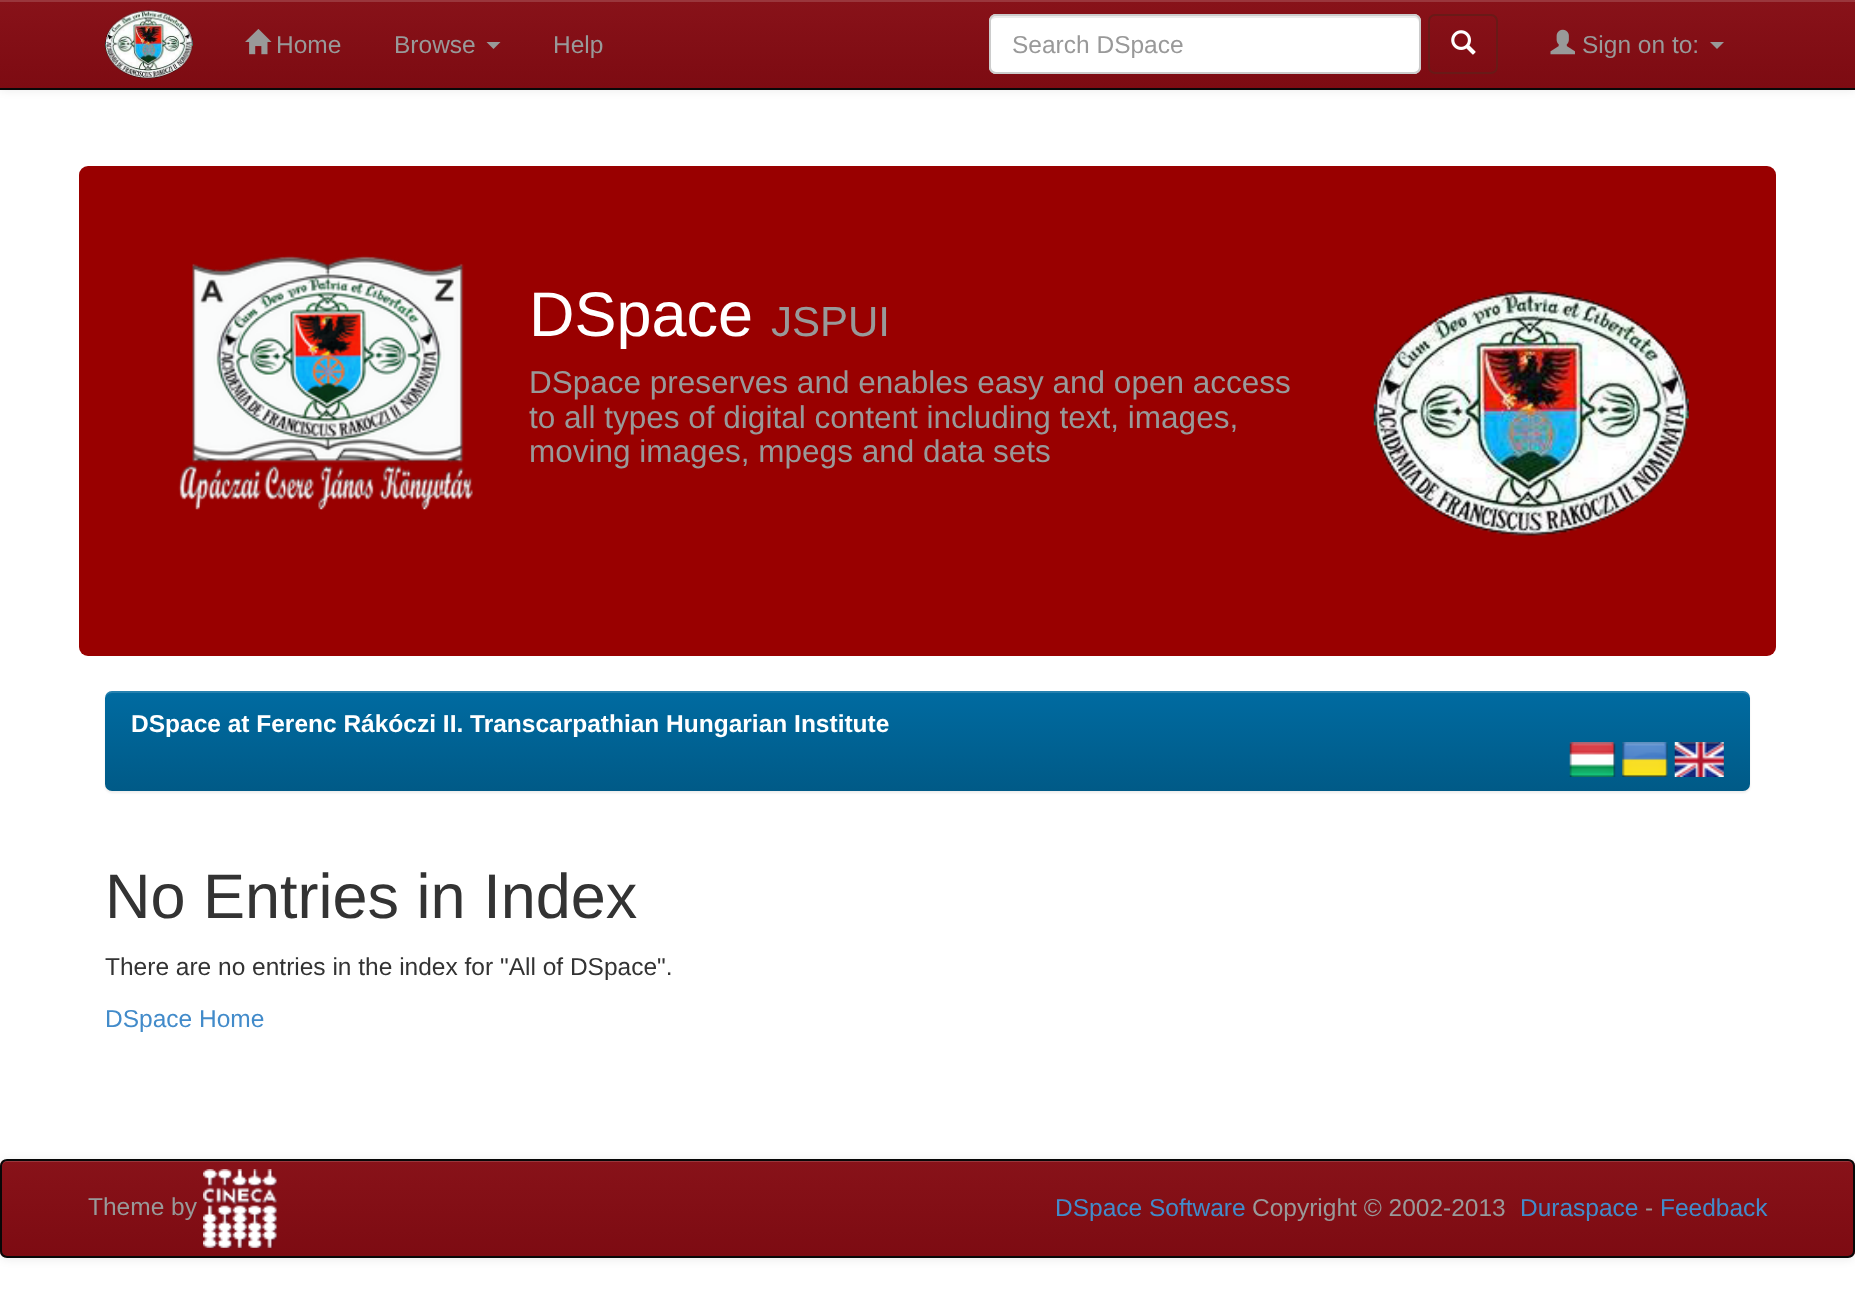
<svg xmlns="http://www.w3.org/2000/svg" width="1855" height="1298">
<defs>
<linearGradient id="g1" gradientUnits="userSpaceOnUse" x1="928" y1="0" x2="928" y2="88"><stop offset="0" stop-color="#881219"/><stop offset="1" stop-color="#7d0b12"/></linearGradient>
<linearGradient id="g2" gradientUnits="userSpaceOnUse" x1="928" y1="691" x2="928" y2="791"><stop offset="0" stop-color="#006ba1"/><stop offset="1" stop-color="#005a87"/></linearGradient>
<clipPath id="clip1"><rect y="1159" width="1855" height="99" rx="7"/></clipPath>
<linearGradient id="g3" gradientUnits="userSpaceOnUse" x1="928" y1="1160" x2="928" y2="1257"><stop offset="0" stop-color="#881219"/><stop offset="1" stop-color="#7d0b12"/></linearGradient>
</defs>
<rect width="100%" height="100%" fill="#fff"/>
<rect y="2" width="1855" height="89" fill="#00000012" filter="blur(4.5px)"/>
<rect y="2" width="1855" height="86" fill="url(#g1)"/>
<rect width="1855" height="2" fill="#9a363c"/>
<rect y="88" width="1855" height="2" fill="#080808"/>
<image x="105" y="9" width="88" height="70" href="media/1.png"/>
<image x="245" y="29" width="27" height="26" href="media/2.png"/>
<text x="276" y="53" style="font-family:Liberation Sans;font-size:24.5px;fill:#999">Home</text>
<text x="394" y="53" style="font-family:Liberation Sans;font-size:24.5px;fill:#999">Browse</text>
<path d="M486.5 42h14l-7 7z" fill="#999"/>
<text x="553" y="53" style="font-family:Liberation Sans;font-size:24.5px;fill:#999">Help</text>
<rect x="989" y="14" width="432" height="60" rx="7" fill="#fff"/>
<path d="M996 18h418c3 0 5 2 5 5v-2c0-3-2-5-5-5h-418c-2 0-5 2-5 4c1-1 3-2 5-2z" fill="#ececec"/>
<rect x="990" y="15" width="430" height="58" rx="6" fill="none" stroke="#ccc" stroke-width="2"/>
<text x="1012" y="53" style="font-family:Liberation Sans;font-size:24.5px;fill:#999">Search DSpace</text>
<rect x="1429" y="15" width="68" height="58" rx="6" fill="none" stroke="#691a17" stroke-width="2"/>
<image x="1451" y="30" width="25" height="25" href="media/3.png"/>
<image x="1550" y="29" width="25" height="26" href="media/4.png"/>
<text x="1582" y="53" style="font-family:Liberation Sans;font-size:24.5px;fill:#999">Sign on to:</text>
<path d="M1710 42h14l-7 7z" fill="#999"/>
<rect x="79" y="166" width="1697" height="490" rx="9" fill="#900"/>
<image x="178" y="254" width="295" height="256" href="media/5.png"/>
<text x="529" y="336" style="font-family:Liberation Sans;font-size:63px;fill:#fff">DSpace</text>
<text x="771" y="336" style="font-family:Liberation Sans;font-size:42px;fill:#999">JSPUI</text>
<text x="529" y="393" style="font-family:Liberation Sans;font-size:31.5px;fill:#999">DSpace preserves and enables easy and open access</text>
<text x="529" y="428" style="font-family:Liberation Sans;font-size:31.5px;fill:#999">to all types of digital content including text, images,</text>
<text x="529" y="462" style="font-family:Liberation Sans;font-size:31.5px;fill:#999">moving images, mpegs and data sets</text>
<image x="1373" y="290" width="316" height="246" href="media/6.png"/>
<rect x="105" y="693" width="1645" height="100" rx="7" fill="#00000012" filter="blur(1px)"/>
<rect x="105" y="691" width="1645" height="100" rx="7" fill="url(#g2)"/>
<path d="M112 693h1631c4 0 7 3 7 7c0-4-2-9-7-9h-1631c-5 0-7 5-7 9c0-4 3-7 7-7z" fill="#ffffff26"/>
<text x="131" y="732" style="font-family:Liberation Sans;font-size:24.5px;font-weight:bold;fill:#fff">DSpace at Ferenc Rákóczi II. Transcarpathian Hungarian Institute</text>
<image x="1569" y="742" width="47" height="35" href="media/7.png"/>
<image x="1622" y="742" width="46" height="35" href="media/8.png"/>
<image x="1674" y="742" width="50" height="35" href="media/9.png"/>
<text x="105" y="918" style="font-family:Liberation Sans;font-size:63px;fill:#333">No Entries in Index</text>
<text x="105" y="975" style="font-family:Liberation Sans;font-size:24.5px;fill:#333">There are no entries in the index for "All of DSpace".</text>
<text x="105" y="1027" style="font-family:Liberation Sans;font-size:24.5px;fill:#428bca">DSpace Home</text>
<rect y="1160" width="1855" height="100" rx="7" fill="#00000012" filter="blur(4.5px)"/>
<g clip-path="url(#clip1)">
<rect y="1160" width="1855" height="97" fill="url(#g3)"/>
</g>
<path d="M7 1162h1841c3 0 5 2 5 5c0-3-1-7-5-7h-1841c-4 0-5 4-5 7c0-3 2-5 5-5z" fill="#9a363c"/>
<rect x="1" y="1160" width="1853" height="97" rx="6" fill="none" stroke="#080808" stroke-width="2"/>
<text x="88" y="1215" style="font-family:Liberation Sans;font-size:24.5px;fill:#999">Theme by</text>
<image x="203" y="1169" width="74" height="79" href="media/10.png"/>
<text x="1055" y="1216" style="font-family:Liberation Sans;font-size:24.5px;fill:#428bca">DSpace Software</text>
<text x="1252" y="1216" style="font-family:Liberation Sans;font-size:24.5px;fill:#999">Copyright © 2002-2013</text>
<text x="1520" y="1216" style="font-family:Liberation Sans;font-size:24.5px;fill:#428bca">Duraspace</text>
<text x="1645" y="1216" style="font-family:Liberation Sans;font-size:24.5px;fill:#999">-</text>
<text x="1660" y="1216" style="font-family:Liberation Sans;font-size:24.5px;fill:#428bca">Feedback</text>
</svg>
